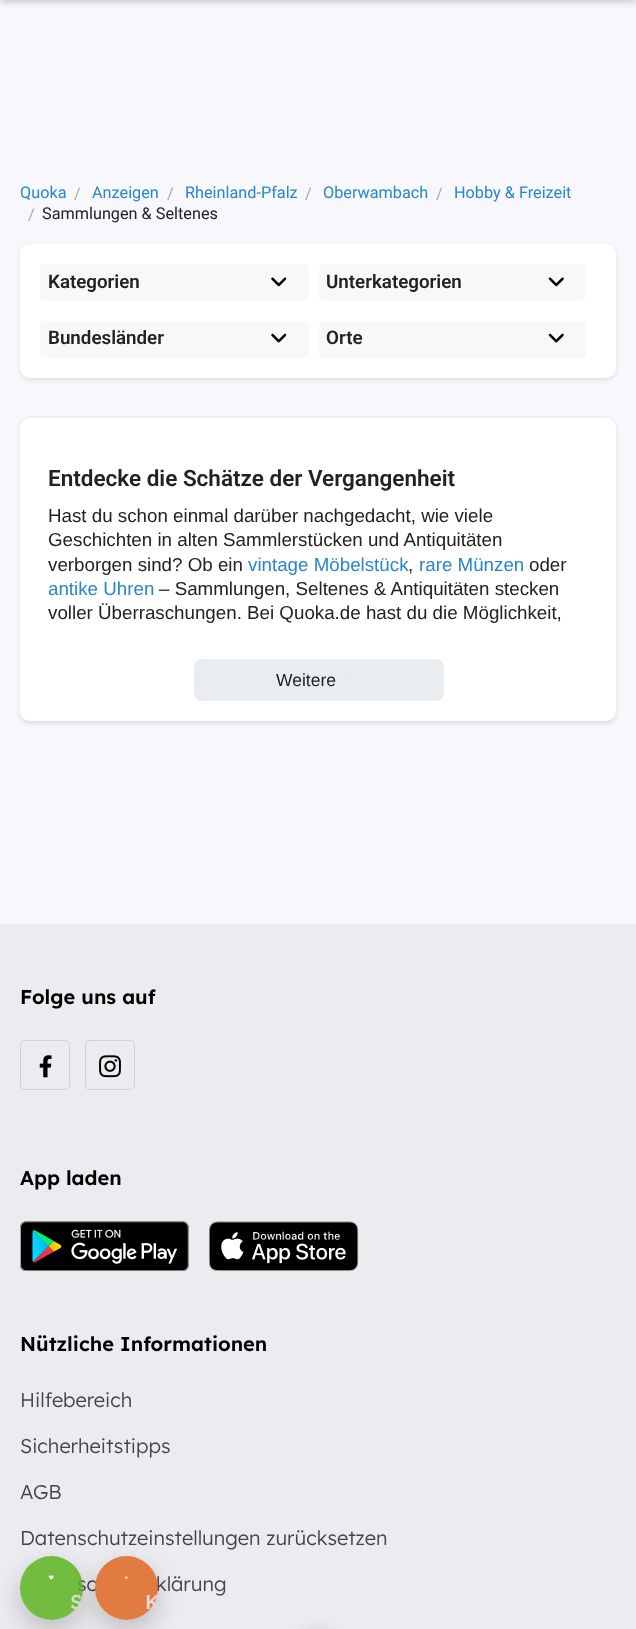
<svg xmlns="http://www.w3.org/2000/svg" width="636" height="1629">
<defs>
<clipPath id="clip1"><path d="M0 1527h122v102h-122zm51.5 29c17.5 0 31.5 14 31.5 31.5v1c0 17.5-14 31.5-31.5 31.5c-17.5 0-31.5-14-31.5-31.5v-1c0-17.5 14-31.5 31.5-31.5z" clip-rule="evenodd"/></clipPath>
<clipPath id="clip2"><path d="M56 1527h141v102h-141zm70.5 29c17.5 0 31.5 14 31.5 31.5v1c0 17.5-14 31.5-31.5 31.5c-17.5 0-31.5-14-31.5-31.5v-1c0-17.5 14-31.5 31.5-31.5z" clip-rule="evenodd"/></clipPath>
</defs>
<rect width="100%" height="100%" fill="#f7f7fc"/>
<rect y="-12" width="636" height="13" fill="#20212447" filter="blur(4px)"/>
<text x="20" y="198" style="font-family:Roboto;font-size:16.25px;fill:#2986c8">Quoka</text>
<text x="74" y="199" style="font-family:Roboto;font-size:16.25px;fill:#aaa">/</text>
<text x="92" y="198" style="font-family:Roboto;font-size:16.25px;fill:#2986c8">Anzeigen</text>
<text x="167" y="199" style="font-family:Roboto;font-size:16.25px;fill:#aaa">/</text>
<text x="185" y="198" style="font-family:Roboto;font-size:16.25px;fill:#2986c8">Rheinland-Pfalz</text>
<text x="305" y="199" style="font-family:Roboto;font-size:16.25px;fill:#aaa">/</text>
<text x="323" y="198" style="font-family:Roboto;font-size:16.25px;fill:#2986c8">Oberwambach</text>
<text x="436" y="199" style="font-family:Roboto;font-size:16.25px;fill:#aaa">/</text>
<text x="454" y="198" style="font-family:Roboto;font-size:16.25px;fill:#2986c8">Hobby &amp; Freizeit</text>
<text x="28" y="220" style="font-family:Roboto;font-size:16.25px;fill:#aaa">/</text>
<text x="42" y="219" style="font-family:Roboto;font-size:16.25px;fill:#222">Sammlungen &amp; Seltenes</text>
<rect x="20" y="246" width="596" height="134" rx="10" fill="#0000001a" filter="blur(2.5px)"/>
<rect x="20" y="244" width="596" height="134" rx="10" fill="#fff"/>
<rect x="40" y="264" width="269" height="37" rx="5" fill="#f8f8f8"/>
<image x="271" y="277" width="16" height="10" href="media/1.png"/>
<text x="48" y="288" style="font-family:Roboto;font-size:18.75px;font-weight:600;fill:#222">Kategorien</text>
<rect x="319" y="264" width="267" height="37" rx="5" fill="#f8f8f8"/>
<image x="548" y="277" width="16" height="10" href="media/2.png"/>
<text x="326" y="288" style="font-family:Roboto;font-size:18.75px;font-weight:600;fill:#222">Unterkategorien</text>
<rect x="40" y="321" width="269" height="37" rx="5" fill="#f8f8f8"/>
<image x="271" y="333" width="16" height="10" href="media/3.png"/>
<text x="48" y="344" style="font-family:Roboto;font-size:18.75px;font-weight:600;fill:#222">Bundesländer</text>
<rect x="319" y="321" width="267" height="37" rx="5" fill="#f8f8f8"/>
<image x="548" y="333" width="16" height="10" href="media/4.png"/>
<text x="326" y="344" style="font-family:Roboto;font-size:18.75px;font-weight:600;fill:#222">Orte</text>
<path d="M30 416c-7 0-10 6-10 12c0-6 4-10 10-10h576c5 0 9 3 10 7c0-5-5-9-10-9z" fill="#f2f2f7"/>
<rect x="20" y="420" width="596" height="304" rx="10" fill="#0000001a" filter="blur(2.5px)"/>
<rect x="20" y="418" width="596" height="303" rx="10" fill="#fff"/>
<text x="48" y="486" style="font-family:Roboto;font-size:22.5px;font-weight:600;fill:#222">Entdecke die Schätze der Vergangenheit</text>
<text x="48" y="522" style="font-family:Liberation Sans;font-size:18.75px;fill:#222">Hast du schon einmal darüber nachgedacht, wie viele</text>
<text x="48" y="546" style="font-family:Liberation Sans;font-size:18.75px;fill:#222">Geschichten in alten Sammlerstücken und Antiquitäten</text>
<text x="48" y="571" style="font-family:Liberation Sans;font-size:18.75px;fill:#222">verborgen sind? Ob ein</text>
<text x="248" y="571" style="font-family:Liberation Sans;font-size:18.75px;fill:#2986c8">vintage Möbelstück</text>
<text x="408" y="571" style="font-family:Liberation Sans;font-size:18.75px;fill:#222">,</text>
<text x="419" y="571" style="font-family:Liberation Sans;font-size:18.75px;fill:#2986c8">rare Münzen</text>
<text x="529" y="571" style="font-family:Liberation Sans;font-size:18.75px;fill:#222">oder</text>
<text x="48" y="595" style="font-family:Liberation Sans;font-size:18.75px;fill:#2986c8">antike Uhren</text>
<text x="159" y="595" style="font-family:Liberation Sans;font-size:18.75px;fill:#222">– Sammlungen, Seltenes &amp; Antiquitäten stecken</text>
<text x="48" y="619" style="font-family:Liberation Sans;font-size:18.75px;fill:#222">voller Überraschungen. Bei Quoka.de hast du die Möglichkeit,</text>
<rect x="194" y="659" width="250" height="42" rx="8" fill="#eaedef"/>
<text x="276" y="686" style="font-family:Liberation Sans;font-size:17.5px;fill:#222">Weitere</text>
<image x="348" y="673" width="2" height="1" href="media/5.png"/>
<rect y="924" width="636" height="705" fill="#ececf0"/>
<text x="20" y="1004" style="font-family:Lexend;font-size:20px;font-weight:600;fill:#000">Folge uns auf</text>
<rect x="20.5" y="1040.5" width="49" height="49" rx="4.5" fill="none" stroke="#d2d2d2"/>
<image x="39" y="1055" width="13" height="23" href="media/6.png"/>
<rect x="85.5" y="1040.5" width="49" height="49" rx="4.5" fill="none" stroke="#d2d2d2"/>
<image x="99" y="1055" width="22" height="23" href="media/7.png"/>
<text x="20" y="1185" style="font-family:Lexend;font-size:20px;font-weight:600;fill:#000">App laden</text>
<image x="20" y="1221" width="169" height="50" href="media/8.png"/>
<image x="209" y="1221" width="150" height="50" href="media/9.png"/>
<text x="20" y="1351" style="font-family:Lexend;font-size:20px;font-weight:600;fill:#000">Nützliche Informationen</text>
<text x="20" y="1407" style="font-family:Lexend;font-size:20px;font-weight:300;fill:#444">Hilfebereich</text>
<text x="20" y="1453" style="font-family:Lexend;font-size:20px;font-weight:300;fill:#444">Sicherheitstipps</text>
<text x="20" y="1499" style="font-family:Lexend;font-size:20px;font-weight:300;fill:#444">AGB</text>
<text x="20" y="1545" style="font-family:Lexend;font-size:20px;font-weight:300;fill:#444">Datenschutzeinstellungen zurücksetzen</text>
<text x="77" y="1591" style="font-family:Lexend;font-size:20px;font-weight:300;fill:#444">sc</text>
<text x="156" y="1591" style="font-family:Lexend;font-size:20px;font-weight:300;fill:#444">klärung</text>
<g clip-path="url(#clip1)">
<rect x="20" y="1566" width="63" height="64" rx="31.5" fill="#00000033" filter="blur(12.5px)"/>
</g>
<rect x="20" y="1556" width="63" height="64" rx="31.5" fill="#5db420d9"/>
<image x="48" y="1575" width="6" height="5" href="media/10.png"/>
<text x="70" y="1609" style="font-family:Lexend;font-size:20px;font-weight:500;fill:#d1dfca">S</text>
<g clip-path="url(#clip2)">
<rect x="95" y="1566" width="63" height="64" rx="31.5" fill="#00000033" filter="blur(12.5px)"/>
</g>
<rect x="95" y="1556" width="63" height="64" rx="31.5" fill="#e06720d9"/>
<image x="124" y="1575" width="5" height="5" href="media/11.png"/>
<text x="145" y="1609" style="font-family:Lexend;font-size:20px;font-weight:500;fill:#e8dbd7">K</text>
<rect x="295" y="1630" width="45" height="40" rx="22.5" fill="#ccc" filter="blur(6px)"/>
</svg>
